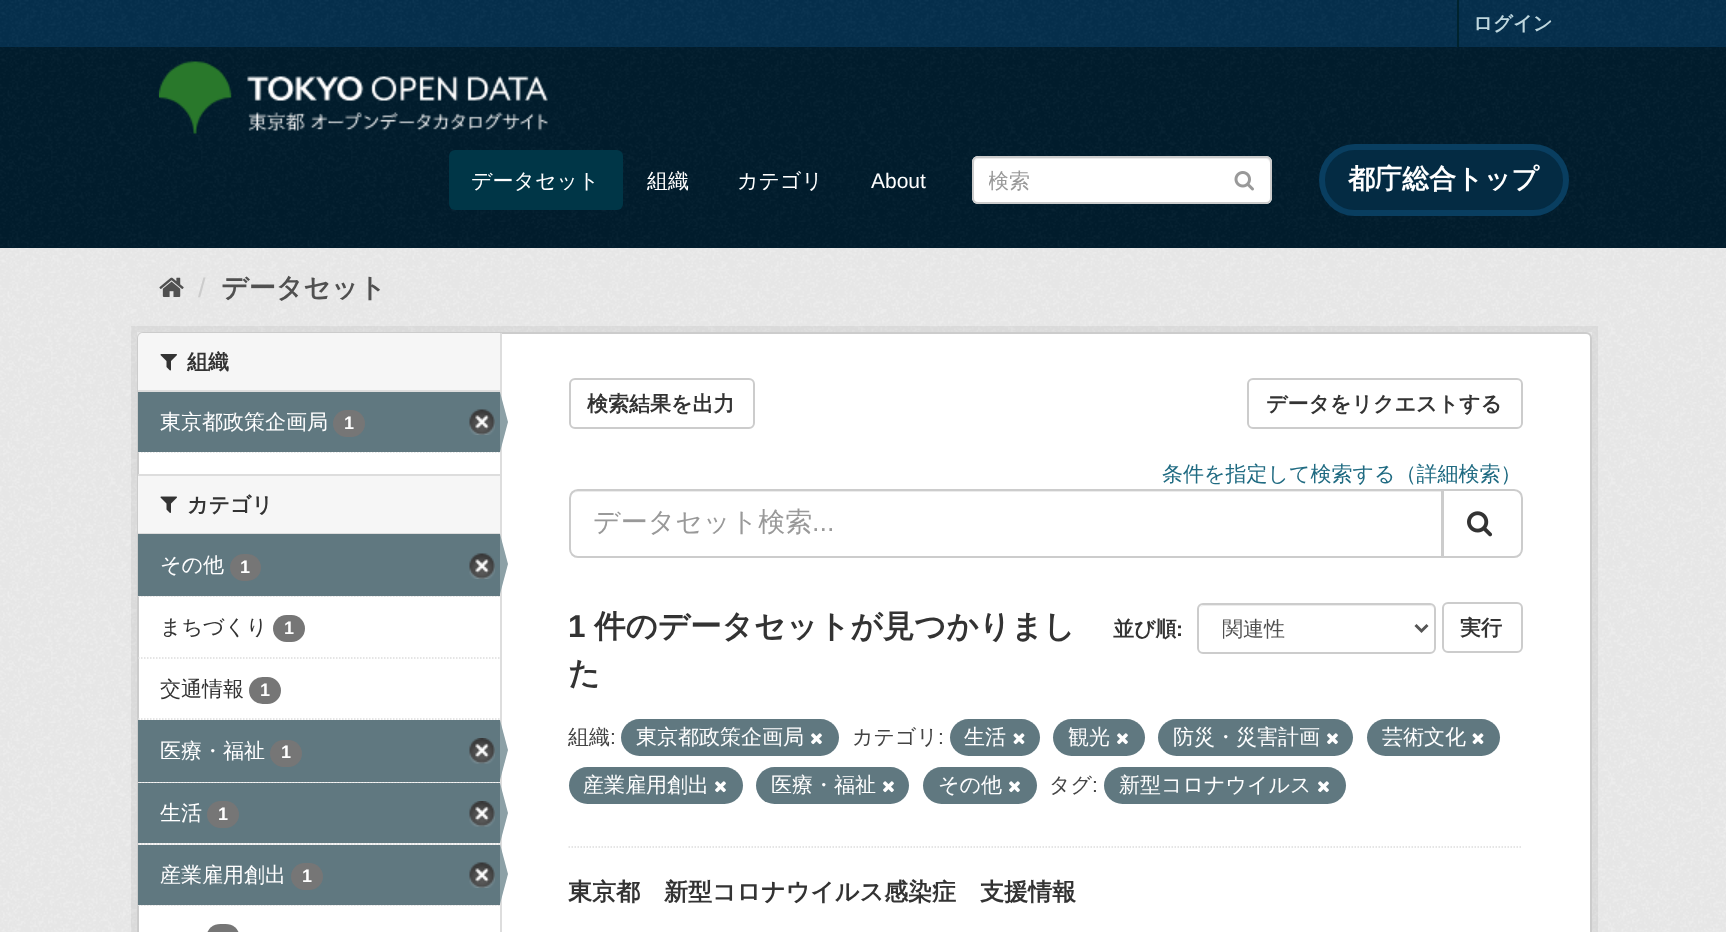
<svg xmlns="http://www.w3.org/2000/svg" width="1726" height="932">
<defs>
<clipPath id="clip1"><rect x="989" y="168" width="267" height="27"/></clipPath>
<clipPath id="clip2"><rect x="1223" y="615" width="169" height="27"/></clipPath>
</defs>
<rect width="100%" height="100%" fill="#06304e"/>
<image x="0" y="0" width="1726" height="46" href="media/1.png"/>
<rect x="1457" width="2" height="47" fill="#00232e"/>
<text x="1473" y="30" style="font-family:WenQuanYi Zen Hei;font-size:19.5px;font-weight:bold;fill:#bfd7de">ログイン</text>
<rect y="47" width="1726" height="201" fill="#021d2e"/>
<image x="0" y="47" width="1726" height="200" href="media/2.png"/>
<image x="159" y="61" width="389" height="73" href="media/3.png"/>
<rect x="449" y="150" width="174" height="60" rx="6" fill="#003647"/>
<text x="471" y="188" style="font-family:WenQuanYi Zen Hei;font-size:21px;font-weight:500;fill:#fff">データセット</text>
<text x="647" y="188" style="font-family:WenQuanYi Zen Hei;font-size:21px;font-weight:500;fill:#fff">組織</text>
<text x="737" y="188" style="font-family:WenQuanYi Zen Hei;font-size:21px;font-weight:500;fill:#fff">カテゴリ</text>
<text x="871" y="188" style="font-family:Liberation Sans;font-size:21px;fill:#fff">About</text>
<rect x="972" y="156" width="300" height="48" rx="6" fill="#fff"/>
<path d="M978 159h288c2 0 4 2 4 5v37c1-1 1-2 1-3v-35c0-3-2-5-5-5h-287c-3 0-5 2-5 5v1c0-3 2-5 4-5z" fill="#ececec"/>
<rect x="973" y="157" width="298" height="46" rx="5" fill="none" stroke="#ccc" stroke-width="2"/>
<g clip-path="url(#clip1)">
<text x="988" y="188" style="font-family:WenQuanYi Zen Hei;font-size:21px;font-weight:500;fill:#999">検索</text>
</g>
<image x="1234" y="171" width="20" height="20" href="media/4.png"/>
<rect x="1322" y="147" width="244" height="66" rx="33" fill="#042b43" stroke="#093e60" stroke-width="6"/>
<text x="1348" y="188" style="font-family:WenQuanYi Zen Hei;font-size:27px;font-weight:bold;fill:#fff">都庁総合トップ</text>
<rect y="248" width="1726" height="684" fill="#eee"/>
<image x="0" y="248" width="1726" height="684" href="media/5.png"/>
<image x="159" y="277" width="25" height="20" href="media/6.png"/>
<text x="198" y="297" style="font-family:Liberation Sans;font-size:27px;fill:#ccc">/</text>
<text x="221" y="297" style="font-family:WenQuanYi Zen Hei;font-size:27px;font-weight:bold;fill:#505050">データセット</text>
<rect x="134" y="329" width="1461" height="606" fill="none" stroke="#0000000d" stroke-width="6"/>
<rect x="138" y="333" width="1453" height="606" rx="5" fill="#fff" stroke="#ccc" stroke-width="2"/>
<path d="M143 333h357v59h-362v-54c0-3 2-5 5-5z" fill="#f6f6f6"/>
<rect x="138" y="390" width="362" height="2" fill="#ddd"/>
<image x="160" y="354" width="17" height="17" href="media/7.png"/>
<text x="187" y="369" style="font-family:WenQuanYi Zen Hei;font-size:21px;font-weight:bold;fill:#333">組織</text>
<path d="M138 452h361.5" fill="none" stroke="#ddd" stroke-width="1.5" stroke-dasharray="1.5 1.5"/>
<rect x="138" y="392" width="362" height="60" fill="#607880"/>
<text x="160" y="429" style="font-family:WenQuanYi Zen Hei;font-size:21px;font-weight:500;fill:#fff">東京都政策企画局</text>
<rect x="333" y="410" width="32" height="27" rx="13.5" fill="#767676"/>
<text x="344" y="429" style="font-family:Liberation Sans;font-size:18px;font-weight:bold;fill:#fff">1</text>
<image x="469" y="409" width="26" height="26" href="media/8.png"/>
<rect x="500" y="333" width="2" height="599" fill="#ddd"/>
<path d="M500 452v-60l8 30z" fill="#8ca0a6"/>
<rect x="138" y="476" width="362" height="57" fill="#f6f6f6"/>
<rect x="138" y="474" width="362" height="2" fill="#ddd"/>
<rect x="138" y="533" width="362" height="1" fill="#ddd"/>
<image x="160" y="496" width="17" height="17" href="media/9.png"/>
<text x="187" y="512" style="font-family:WenQuanYi Zen Hei;font-size:21px;font-weight:bold;fill:#333">カテゴリ</text>
<rect x="138" y="596" width="362" height="1" fill="#f6f6f6"/>
<path d="M138 596h361.5" fill="none" stroke="#ddd" stroke-width="1.5" stroke-dasharray="1.5 1.5"/>
<rect x="138" y="534" width="362" height="62" fill="#607880"/>
<text x="160" y="572" style="font-family:WenQuanYi Zen Hei;font-size:21px;font-weight:500;fill:#fff">その他</text>
<rect x="230" y="554" width="31" height="27" rx="13.5" fill="#767676"/>
<text x="240" y="573" style="font-family:Liberation Sans;font-size:18px;font-weight:bold;fill:#fff">1</text>
<image x="469" y="553" width="26" height="26" href="media/8.png"/>
<path d="M500 594v-60l8 30z" fill="#8ca0a6"/>
<path d="M138 658h361.5" fill="none" stroke="#ddd" stroke-width="1.5" stroke-dasharray="1.5 1.5"/>
<text x="160" y="634" style="font-family:WenQuanYi Zen Hei;font-size:21px;font-weight:500;fill:#333">まちづくり</text>
<rect x="273" y="615" width="32" height="27" rx="13.5" fill="#767676"/>
<text x="284" y="634" style="font-family:Liberation Sans;font-size:18px;font-weight:bold;fill:#fff">1</text>
<path d="M138 719h361.5" fill="none" stroke="#ddd" stroke-width="1.5" stroke-dasharray="1.5 1.5"/>
<text x="160" y="696" style="font-family:WenQuanYi Zen Hei;font-size:21px;font-weight:500;fill:#333">交通情報</text>
<rect x="249" y="677" width="32" height="27" rx="13.5" fill="#767676"/>
<text x="260" y="696" style="font-family:Liberation Sans;font-size:18px;font-weight:bold;fill:#fff">1</text>
<rect x="138" y="782" width="362" height="1" fill="#f6f6f6"/>
<path d="M138 782h361.5" fill="none" stroke="#ddd" stroke-width="1.5" stroke-dasharray="1.5 1.5"/>
<rect x="138" y="720" width="362" height="62" fill="#607880"/>
<text x="160" y="758" style="font-family:WenQuanYi Zen Hei;font-size:21px;font-weight:500;fill:#fff">医療・福祉</text>
<rect x="270" y="740" width="32" height="27" rx="13.5" fill="#767676"/>
<text x="281" y="758" style="font-family:Liberation Sans;font-size:18px;font-weight:bold;fill:#fff">1</text>
<image x="469" y="738" width="26" height="26" href="media/10.png"/>
<path d="M500 780v-60l8 30z" fill="#8ca0a6"/>
<rect x="138" y="843" width="362" height="2" fill="#f6f6f6"/>
<path d="M138 844h361.5" fill="none" stroke="#ddd" stroke-width="1.5" stroke-dasharray="1.5 1.5"/>
<rect x="138" y="783" width="362" height="60" fill="#607880"/>
<text x="160" y="820" style="font-family:WenQuanYi Zen Hei;font-size:21px;font-weight:500;fill:#fff">生活</text>
<rect x="207" y="801" width="32" height="27" rx="13.5" fill="#767676"/>
<text x="218" y="820" style="font-family:Liberation Sans;font-size:18px;font-weight:bold;fill:#fff">1</text>
<image x="469" y="801" width="26" height="26" href="media/10.png"/>
<path d="M500 843v-60l8 30z" fill="#8ca0a6"/>
<rect x="138" y="905" width="362" height="1" fill="#f6f6f6"/>
<path d="M138 905h361.5" fill="none" stroke="#ddd" stroke-width="1.5" stroke-dasharray="1.5 1.5"/>
<rect x="138" y="845" width="362" height="60" fill="#607880"/>
<text x="160" y="882" style="font-family:WenQuanYi Zen Hei;font-size:21px;font-weight:500;fill:#fff">産業雇用創出</text>
<rect x="291" y="863" width="32" height="27" rx="13.5" fill="#767676"/>
<text x="302" y="882" style="font-family:Liberation Sans;font-size:18px;font-weight:bold;fill:#fff">1</text>
<image x="469" y="862" width="26" height="26" href="media/8.png"/>
<path d="M500 904v-60l8 30z" fill="#8ca0a6"/>
<rect x="207" y="924" width="32" height="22" rx="13.5" fill="#767676"/>
<rect x="570" y="379" width="184" height="49" rx="5" fill="none" stroke="#ccc" stroke-width="2"/>
<text x="587" y="411" style="font-family:WenQuanYi Zen Hei;font-size:21px;font-weight:bold;fill:#333">検索結果を出力</text>
<rect x="1248" y="379" width="274" height="49" rx="5" fill="none" stroke="#ccc" stroke-width="2"/>
<text x="1266" y="411" style="font-family:WenQuanYi Zen Hei;font-size:21px;font-weight:bold;fill:#333">データをリクエストする</text>
<path d="M568.5 847h954" fill="none" stroke="#ddd" stroke-width="1.5" stroke-dasharray="1.5 1.5"/>
<text x="1162" y="481" style="font-family:WenQuanYi Zen Hei;font-size:21px;font-weight:500;fill:#206b82">条件を指定して検索する（詳細検索）</text>
<path d="M578 492h864v-1h-864c-5 0-8 4-8 9c0-5 3-8 8-8z" fill="#ececec"/>
<path d="M578 490h864v67h-864c-4.5 0-8-3.5-8-8v-51c0-4.5 3.5-8 8-8z" fill="none" stroke="#ccc" stroke-width="2"/>
<text x="593" y="531" style="font-family:WenQuanYi Zen Hei;font-size:27px;font-weight:500;fill:#999">データセット検索</text>
<text x="812" y="531" style="font-family:Liberation Sans;font-size:27px;fill:#999">...</text>
<path d="M1443 490h71c4.5 0 8 3.5 8 8v51c0 4.5-3.5 8-8 8h-71z" fill="#fff" stroke="#ccc" stroke-width="2"/>
<image x="1467" y="511" width="26" height="26" href="media/11.png"/>
<text x="568" y="637" style="font-family:Liberation Sans;font-size:31.5px;font-weight:bold;fill:#333">1</text>
<text x="594" y="637" style="font-family:WenQuanYi Zen Hei;font-size:31.5px;font-weight:bold;fill:#333">件のデータセットが見つかりまし</text>
<text x="568" y="684" style="font-family:WenQuanYi Zen Hei;font-size:31.5px;font-weight:bold;fill:#333">た</text>
<text x="1113" y="636" style="font-family:WenQuanYi Zen Hei;font-size:21px;font-weight:bold;fill:#333">並び順</text>
<text x="1176" y="636" style="font-family:Liberation Sans;font-size:21px;font-weight:bold;fill:#333">:</text>
<path d="M1203 606h227c2 0 4 2 4 4c0-3-2-5-5-5h-225c-2 0-3 1-4 2z" fill="#ececec"/>
<rect x="1198" y="604" width="237" height="49" rx="5" fill="none" stroke="#ccc" stroke-width="2"/>
<path d="M1415.5 625l6 6l6-6" fill="none" stroke="#555" stroke-width="3"/>
<g clip-path="url(#clip2)">
<text x="1222" y="636" style="font-family:WenQuanYi Zen Hei;font-size:21px;font-weight:500;fill:#505050">関連性</text>
</g>
<rect x="1443" y="603" width="79" height="49" rx="5" fill="none" stroke="#ccc" stroke-width="2"/>
<text x="1460" y="635" style="font-family:WenQuanYi Zen Hei;font-size:21px;font-weight:bold;fill:#333">実行</text>
<text x="568" y="744" style="font-family:WenQuanYi Zen Hei;font-size:21px;font-weight:500;fill:#444">組織</text>
<text x="610" y="744" style="font-family:Liberation Sans;font-size:21px;fill:#444">:</text>
<rect x="621" y="719" width="218" height="37" rx="18.5" fill="#607880"/>
<text x="636" y="744" style="font-family:WenQuanYi Zen Hei;font-size:21px;font-weight:500;fill:#fff">東京都政策企画局</text>
<image x="811" y="733" width="11" height="12" href="media/12.png"/>
<text x="852" y="744" style="font-family:WenQuanYi Zen Hei;font-size:21px;font-weight:500;fill:#444">カテゴリ</text>
<text x="938" y="744" style="font-family:Liberation Sans;font-size:21px;fill:#444">:</text>
<rect x="950" y="719" width="90" height="37" rx="18.5" fill="#607880"/>
<text x="964" y="744" style="font-family:WenQuanYi Zen Hei;font-size:21px;font-weight:500;fill:#fff">生活</text>
<image x="1013" y="733" width="12" height="12" href="media/13.png"/>
<rect x="1053" y="719" width="92" height="37" rx="18.5" fill="#607880"/>
<text x="1068" y="744" style="font-family:WenQuanYi Zen Hei;font-size:21px;font-weight:500;fill:#fff">観光</text>
<image x="1117" y="733" width="11" height="12" href="media/12.png"/>
<rect x="1158" y="719" width="195" height="37" rx="18.5" fill="#607880"/>
<text x="1173" y="744" style="font-family:WenQuanYi Zen Hei;font-size:21px;font-weight:500;fill:#fff">防災・災害計画</text>
<image x="1327" y="733" width="11" height="12" href="media/12.png"/>
<rect x="1367" y="719" width="133" height="37" rx="18.5" fill="#607880"/>
<text x="1382" y="744" style="font-family:WenQuanYi Zen Hei;font-size:21px;font-weight:500;fill:#fff">芸術文化</text>
<image x="1472" y="733" width="12" height="12" href="media/13.png"/>
<rect x="569" y="767" width="174" height="37" rx="18.5" fill="#607880"/>
<text x="583" y="792" style="font-family:WenQuanYi Zen Hei;font-size:21px;font-weight:500;fill:#fff">産業雇用創出</text>
<image x="715" y="781" width="11" height="12" href="media/12.png"/>
<rect x="756" y="767" width="153" height="37" rx="18.5" fill="#607880"/>
<text x="771" y="792" style="font-family:WenQuanYi Zen Hei;font-size:21px;font-weight:500;fill:#fff">医療・福祉</text>
<image x="883" y="781" width="11" height="12" href="media/12.png"/>
<rect x="923" y="767" width="114" height="37" rx="18.5" fill="#607880"/>
<text x="938" y="792" style="font-family:WenQuanYi Zen Hei;font-size:21px;font-weight:500;fill:#fff">その他</text>
<image x="1009" y="781" width="11" height="12" href="media/12.png"/>
<text x="1049" y="792" style="font-family:WenQuanYi Zen Hei;font-size:21px;font-weight:500;fill:#444">タグ</text>
<text x="1092" y="792" style="font-family:Liberation Sans;font-size:21px;fill:#444">:</text>
<rect x="1104" y="767" width="242" height="37" rx="18.5" fill="#607880"/>
<text x="1119" y="792" style="font-family:WenQuanYi Zen Hei;font-size:21px;font-weight:500;fill:#fff">新型コロナウイルス</text>
<image x="1318" y="781" width="11" height="12" href="media/12.png"/>
<text x="568" y="900" style="font-family:WenQuanYi Zen Hei;font-size:24px;font-weight:bold;fill:#333">東京都　新型コロナウイルス感染症　支援情報</text>
</svg>
